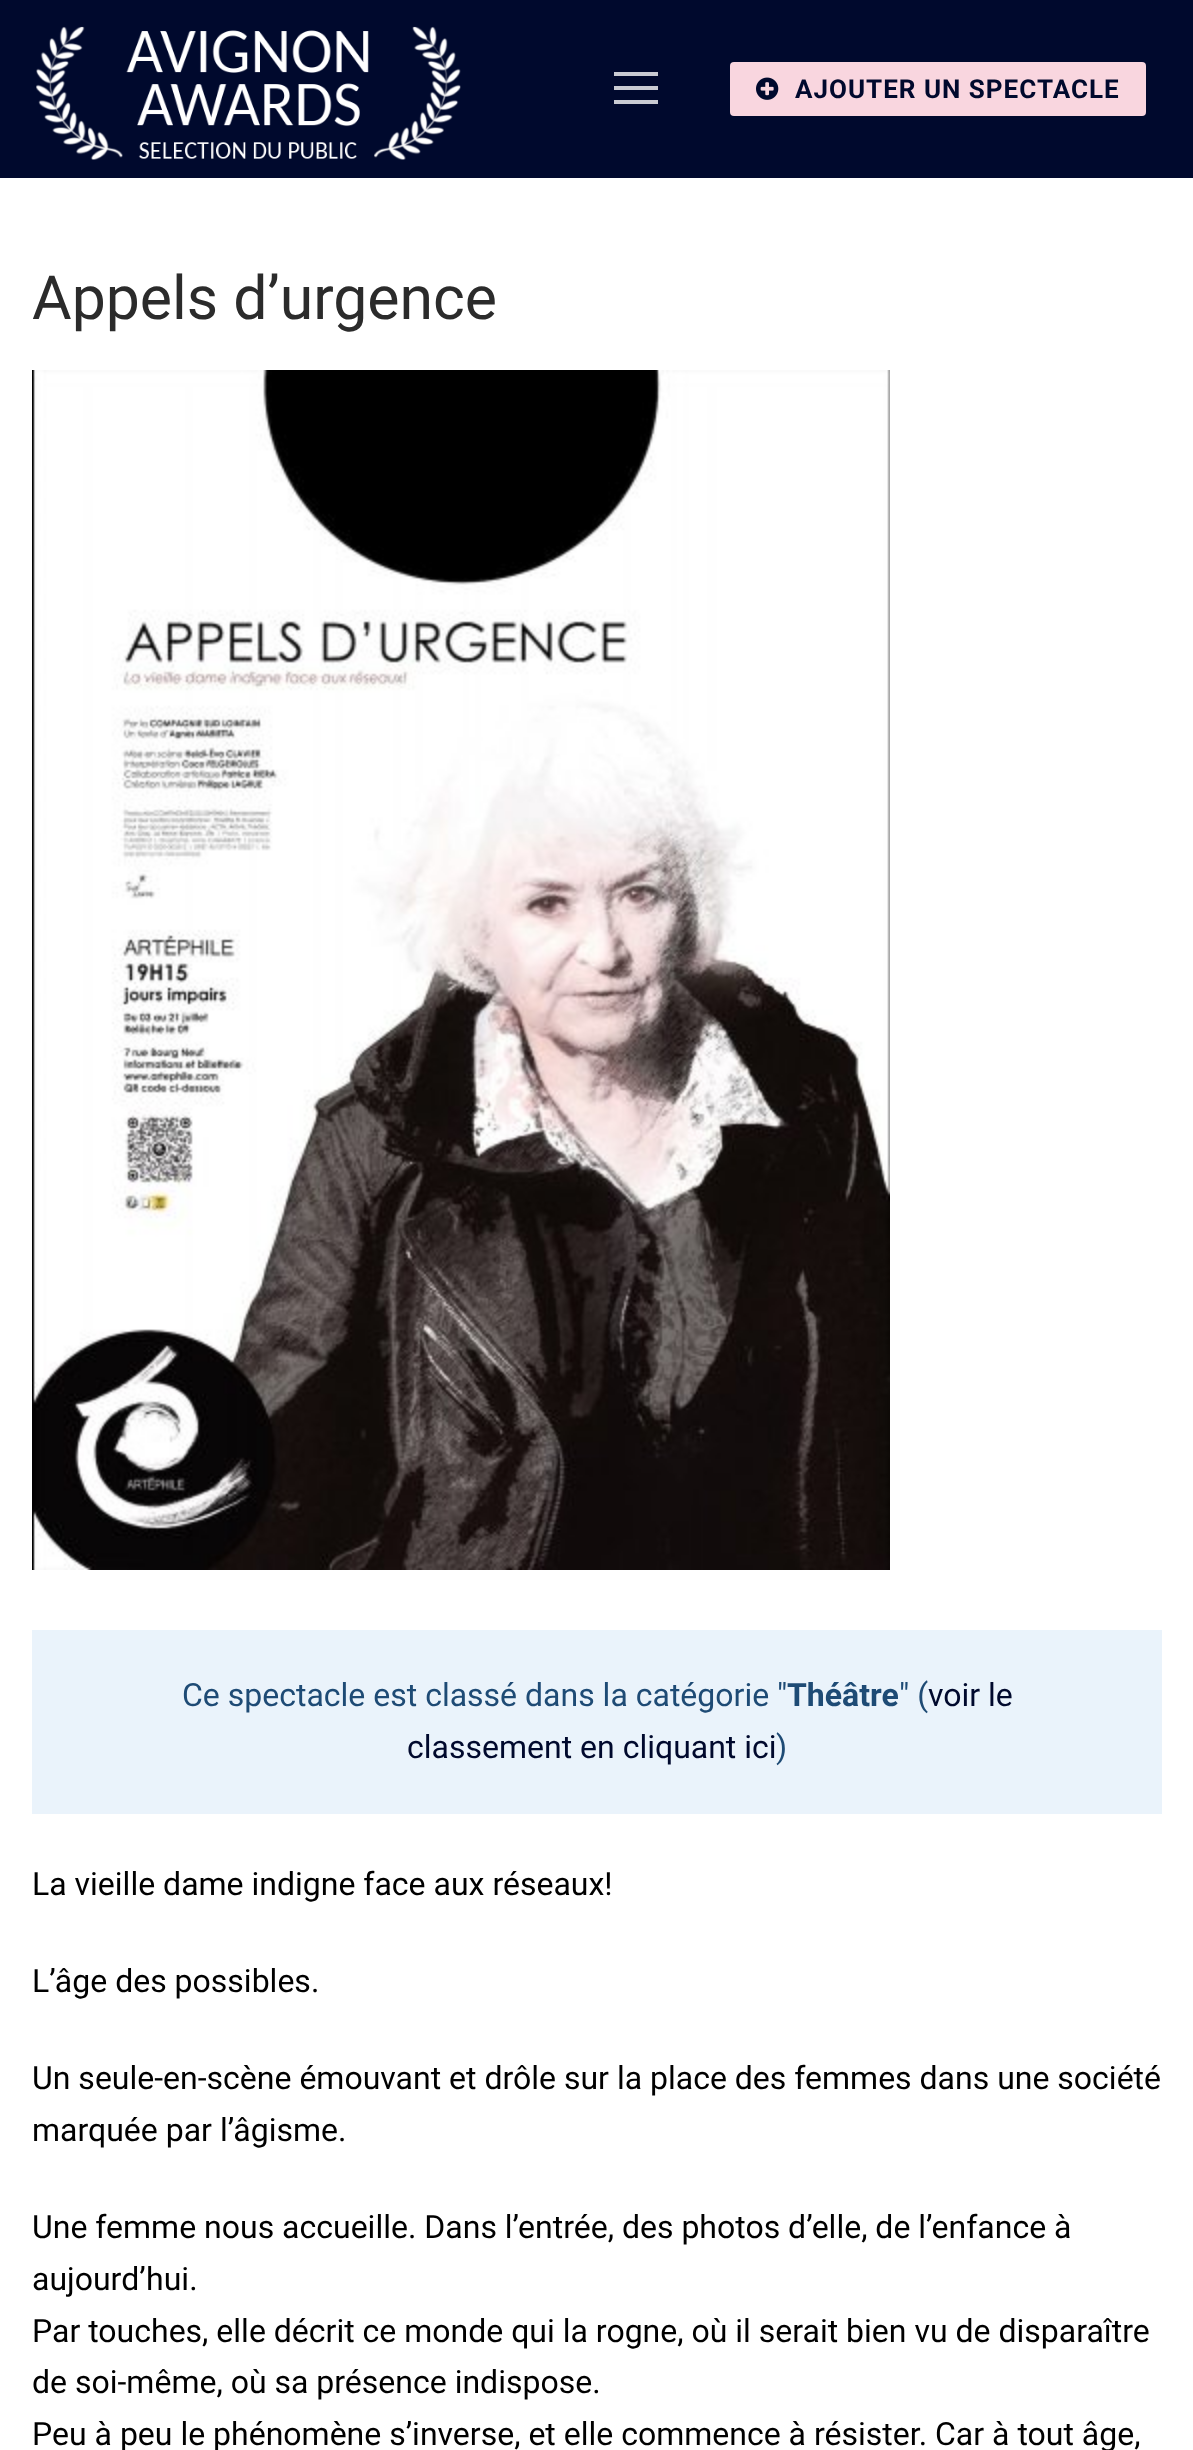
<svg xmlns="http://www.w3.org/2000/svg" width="1193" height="2450">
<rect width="100%" height="100%" fill="#fff"/>
<rect width="1193" height="178" fill="#00092d"/>
<image x="36" y="26" width="425" height="134" href="media/1.png"/>
<rect x="614" y="86" width="44" height="4" fill="#c9cbd3"/>
<rect x="614" y="72" width="44" height="4" fill="#c9cbd3"/>
<rect x="614" y="100" width="44" height="4" fill="#c9cbd3"/>
<rect x="730" y="62" width="416" height="54" rx="4" fill="#f9d6df"/>
<image x="756" y="77" width="23" height="23" href="media/2.png"/>
<text x="795" y="98" style="font-family:Roboto;font-size:26px;font-weight:bold;letter-spacing:1px;fill:#00092d">AJOUTER UN SPECTACLE</text>
<text x="32" y="319" style="font-family:Roboto;font-size:60.75px;fill:#2b2b2b">Appels d’urgence</text>
<image x="32" y="370" width="858" height="1200" href="media/3.png"/>
<rect x="32" y="1630" width="1130" height="184" fill="#eaf3fb"/>
<text x="182" y="1706" style="font-family:Roboto;font-size:32px;fill:#1e4b75">Ce spectacle est classé dans la catégorie "</text>
<text x="787" y="1706" style="font-family:Roboto;font-size:32px;font-weight:bold;fill:#1e4b75">Théâtre</text>
<text x="899" y="1706" style="font-family:Roboto;font-size:32px;fill:#1e4b75">" (</text>
<text x="928" y="1706" style="font-family:Roboto;font-size:32px;fill:#00092d">voir le</text>
<text x="407" y="1758" style="font-family:Roboto;font-size:32px;fill:#00092d">classement en cliquant ici</text>
<text x="776" y="1758" style="font-family:Roboto;font-size:32px;fill:#1e4b75">)</text>
<text x="32" y="1895" style="font-family:Roboto;font-size:32px;fill:#000">La vieille dame indigne face aux réseaux!</text>
<text x="32" y="1992" style="font-family:Roboto;font-size:32px;fill:#000">L’âge des possibles.</text>
<text x="32" y="2089" style="font-family:Roboto;font-size:32px;fill:#000">Un seule-en-scène émouvant et drôle sur la place des femmes dans une société</text>
<text x="32" y="2141" style="font-family:Roboto;font-size:32px;fill:#000">marquée par l’âgisme.</text>
<text x="32" y="2238" style="font-family:Roboto;font-size:32px;fill:#000">Une femme nous accueille. Dans l’entrée, des photos d’elle, de l’enfance à</text>
<text x="32" y="2290" style="font-family:Roboto;font-size:32px;fill:#000">aujourd’hui.</text>
<text x="32" y="2342" style="font-family:Roboto;font-size:32px;fill:#000">Par touches, elle décrit ce monde qui la rogne, où il serait bien vu de disparaître</text>
<text x="32" y="2393" style="font-family:Roboto;font-size:32px;fill:#000">de soi-même, où sa présence indispose.</text>
<text x="32" y="2445" style="font-family:Roboto;font-size:32px;fill:#000">Peu à peu le phénomène s’inverse, et elle commence à résister. Car à tout âge,</text>
</svg>
